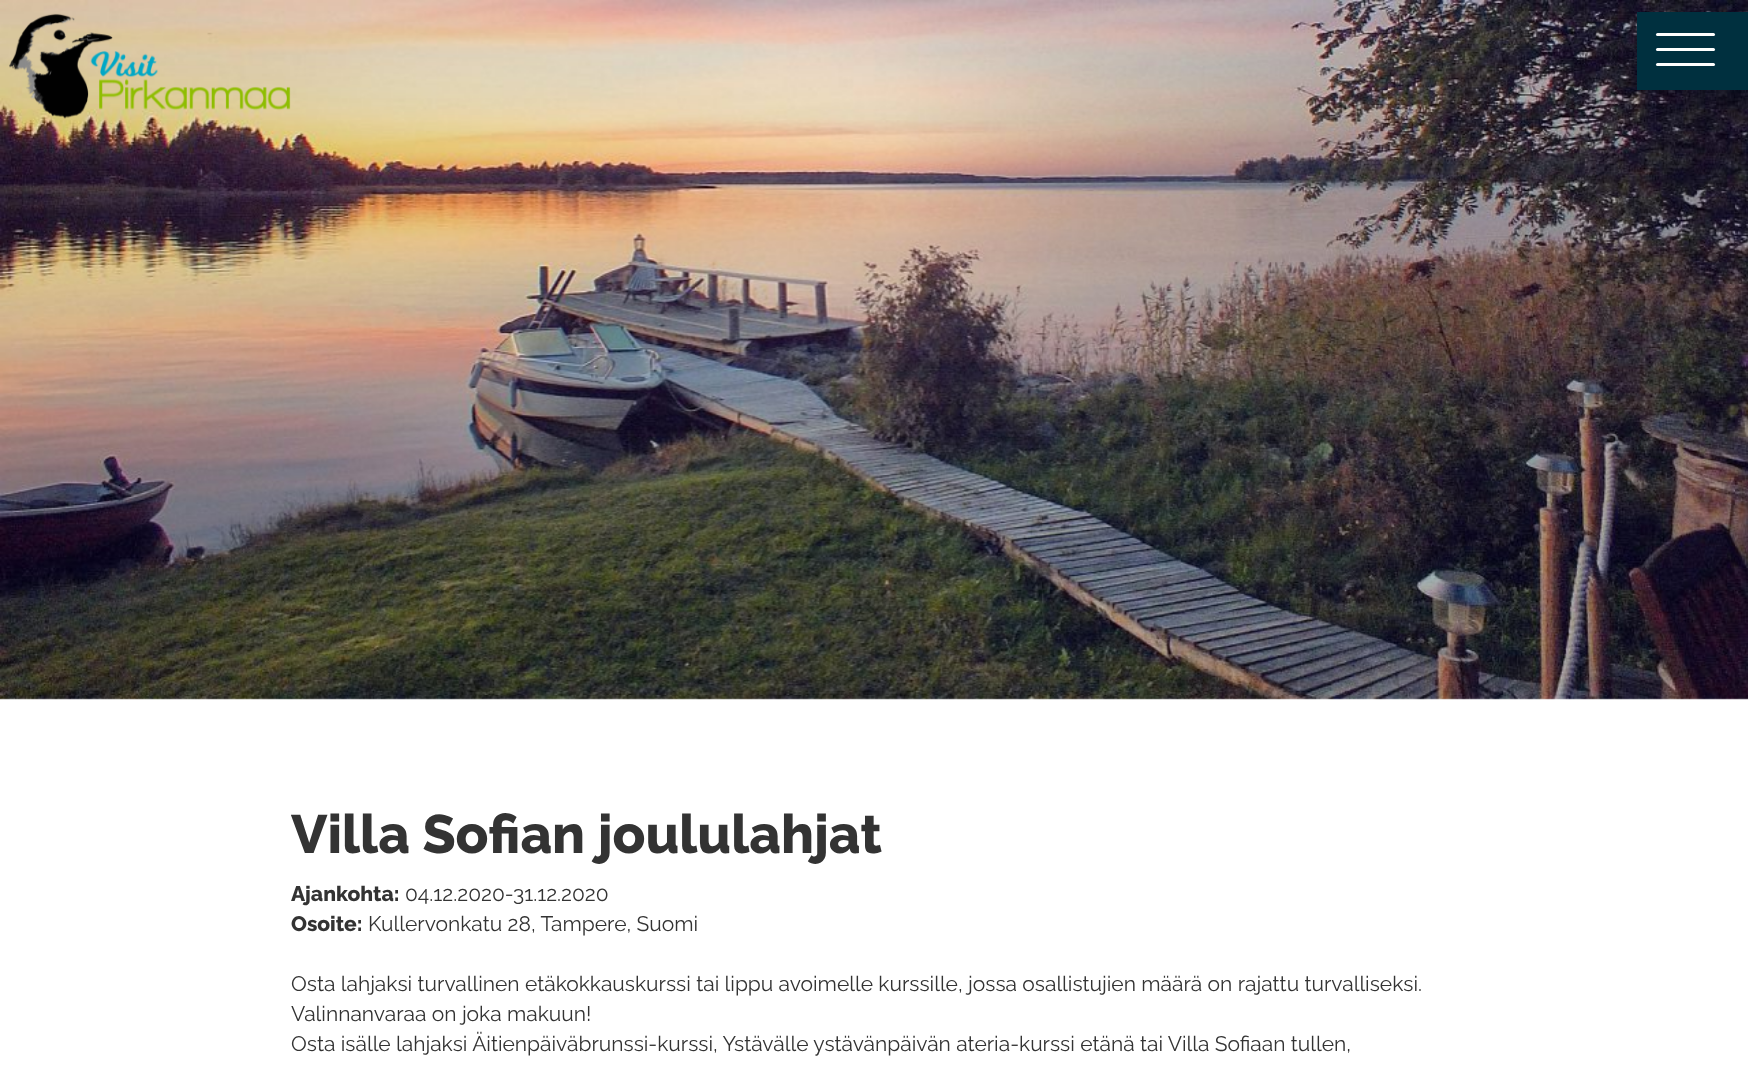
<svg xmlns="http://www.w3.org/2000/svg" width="1748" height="1073">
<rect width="100%" height="100%" fill="#fff"/>
<image x="0" y="0" width="1748" height="700" href="media/1.png"/>
<image x="9" y="13" width="282" height="106" href="media/2.png"/>
<rect x="1637" y="12" width="111" height="78" fill="#00303f"/>
<rect x="1656" y="33" width="59" height="3" rx="1.5" fill="#fff"/>
<rect x="1656" y="48" width="59" height="3" rx="1.5" fill="#fff"/>
<rect x="1656" y="63" width="59" height="3" rx="1.5" fill="#fff"/>
<text x="291" y="853" style="font-family:Raleway;font-size:54px;font-weight:800;fill:#333">Villa Sofian joululahjat</text>
<text x="291" y="901" style="font-family:Raleway;font-size:21px;font-weight:800;fill:#333">Ajankohta:</text>
<text x="405" y="901" style="font-family:Raleway;font-size:21px;fill:#333">04.12.2020-</text>
<text x="513" y="901" style="font-family:Raleway;font-size:21px;fill:#333">31.12.2020</text>
<text x="291" y="931" style="font-family:Raleway;font-size:21px;font-weight:800;fill:#333">Osoite:</text>
<text x="368" y="931" style="font-family:Raleway;font-size:21px;fill:#333">Kullervonkatu 28, Tampere, Suomi</text>
<text x="291" y="991" style="font-family:Raleway;font-size:21px;fill:#333">Osta lahjaksi turvallinen etäkokkauskurssi tai lippu avoimelle kurssille, jossa osallistujien määrä on rajattu turvalliseksi.</text>
<text x="291" y="1021" style="font-family:Raleway;font-size:21px;fill:#333">Valinnanvaraa on joka makuun!</text>
<text x="291" y="1051" style="font-family:Raleway;font-size:21px;fill:#333">Osta isälle lahjaksi Äitienpäiväbrunssi-kurssi, Ystävälle ystävänpäivän ateria-kurssi etänä tai Villa Sofiaan tullen,</text>
</svg>
